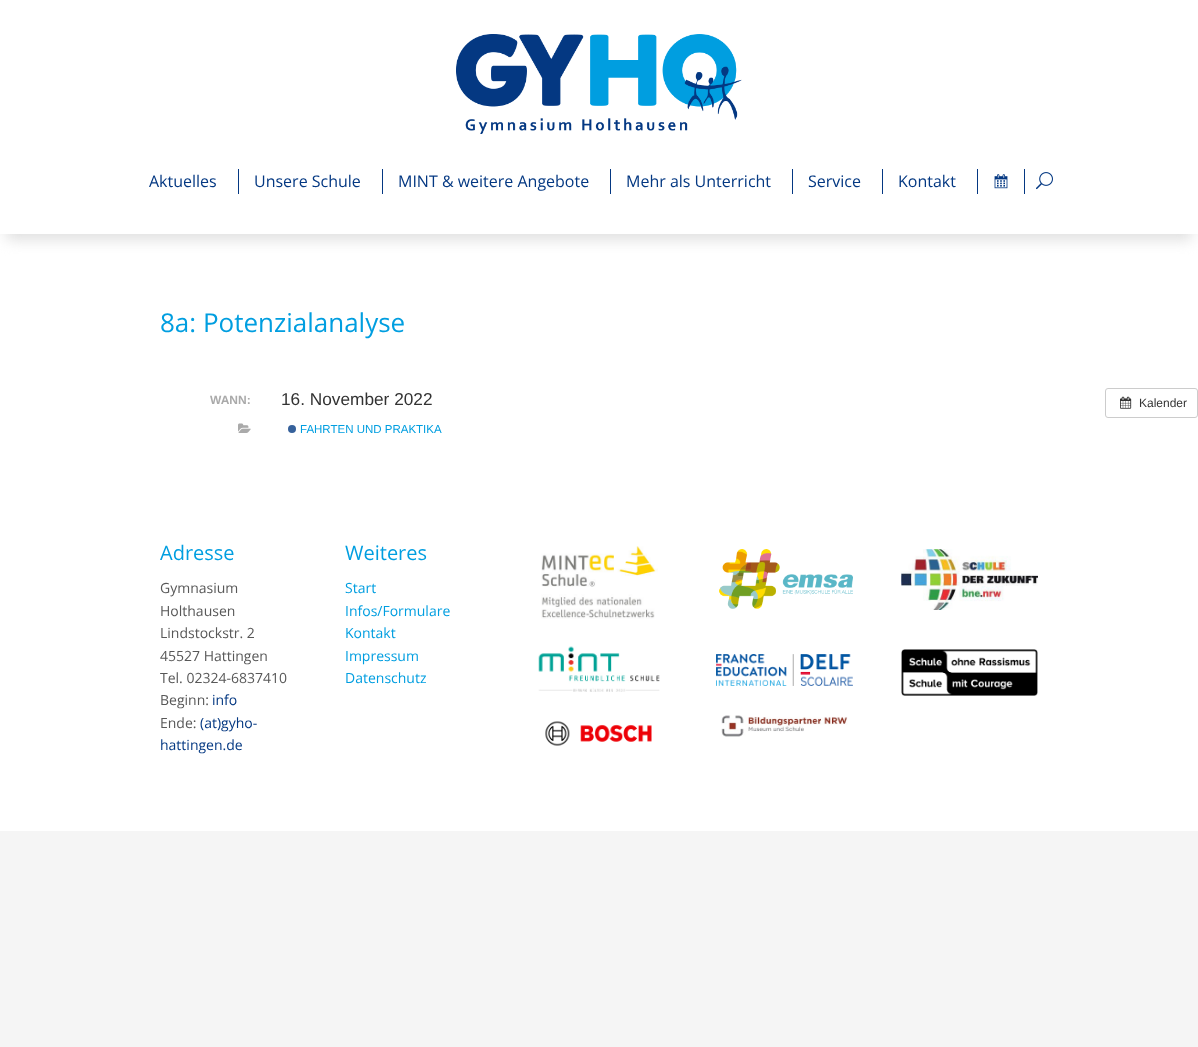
<svg xmlns="http://www.w3.org/2000/svg" width="1198" height="1047">
<rect width="100%" height="100%" fill="#f5f5f5"/>
<rect y="234" width="1198" height="597" fill="#fff"/>
<rect x="6" y="18" width="1186" height="222" fill="#e0e0e0" filter="blur(7px)"/>
<rect width="1198" height="234" fill="#fff"/>
<image x="456" y="34" width="286" height="100" href="media/1.png"/>
<rect x="238" y="169" width="1" height="25" fill="#043882"/>
<text x="149" y="187" style="font-family:Open Sans;font-size:16px;fill:#043882">Aktuelles</text>
<rect x="382" y="169" width="1" height="25" fill="#043882"/>
<text x="254" y="187" style="font-family:Open Sans;font-size:16px;fill:#043882">Unsere Schule</text>
<rect x="610" y="169" width="1" height="25" fill="#043882"/>
<text x="398" y="187" style="font-family:Open Sans;font-size:16px;fill:#043882">MINT &amp; weitere Angebote</text>
<rect x="792" y="169" width="1" height="25" fill="#043882"/>
<text x="626" y="187" style="font-family:Open Sans;font-size:16px;fill:#043882">Mehr als Unterricht</text>
<rect x="882" y="169" width="1" height="25" fill="#043882"/>
<text x="808" y="187" style="font-family:Open Sans;font-size:16px;fill:#043882">Service</text>
<rect x="977" y="169" width="1" height="25" fill="#043882"/>
<text x="898" y="187" style="font-family:Open Sans;font-size:16px;fill:#043882">Kontakt</text>
<rect x="1024" y="169" width="1" height="25" fill="#043882"/>
<image x="994" y="174" width="14" height="15" href="media/2.png"/>
<image x="1036" y="172" width="17" height="18" href="media/3.png"/>
<text x="160" y="332" style="font-family:Open Sans;font-size:26px;fill:#009ee0">8a: Potenzialanalyse</text>
<text x="210" y="404" style="font-family:Liberation Sans;font-size:12px;font-weight:bold;fill:#aaa">WANN:</text>
<text x="281" y="405" style="font-family:Liberation Sans;font-size:17.25px;fill:#333">16. November 2022</text>
<image x="238" y="423" width="13" height="10" href="media/4.png"/>
<circle cx="292" cy="429" r="4" fill="#36619b"/>
<text x="300" y="433" style="font-family:Liberation Sans;font-size:11.5px;fill:#009ee0">FAHRTEN UND PRAKTIKA</text>
<rect x="1105.5" y="388.5" width="92" height="29" rx="2.5" fill="none" stroke="#ccc"/>
<image x="1120" y="396" width="12" height="13" href="media/5.png"/>
<text x="1139" y="407" style="font-family:Liberation Sans;font-size:12px;fill:#333">Kalender</text>
<text x="160" y="560" style="font-family:Open Sans;font-size:20px;fill:#009ee0">Adresse</text>
<text x="160" y="593" style="font-family:Open Sans;font-size:14px;fill:#585858">Gymnasium</text>
<text x="160" y="616" style="font-family:Open Sans;font-size:14px;fill:#585858">Holthausen</text>
<text x="160" y="638" style="font-family:Open Sans;font-size:14px;fill:#585858">Lindstockstr. 2</text>
<text x="160" y="661" style="font-family:Open Sans;font-size:14px;fill:#585858">45527 Hattingen</text>
<text x="160" y="683" style="font-family:Open Sans;font-size:14px;fill:#585858">Tel. 02324-6837410</text>
<text x="160" y="705" style="font-family:Open Sans;font-size:14px;fill:#585858">Beginn:</text>
<text x="212" y="705" style="font-family:Open Sans;font-size:14px;fill:#043882">info</text>
<text x="160" y="728" style="font-family:Open Sans;font-size:14px;fill:#585858">Ende:</text>
<text x="200" y="728" style="font-family:Open Sans;font-size:14px;fill:#043882">(at)gyho-</text>
<text x="160" y="750" style="font-family:Open Sans;font-size:14px;fill:#043882">hattingen.de</text>
<text x="345" y="560" style="font-family:Open Sans;font-size:20px;fill:#009ee0">Weiteres</text>
<text x="345" y="593" style="font-family:Open Sans;font-size:14px;fill:#009ee0">Start</text>
<text x="345" y="616" style="font-family:Open Sans;font-size:14px;fill:#009ee0">Infos/Formulare</text>
<text x="345" y="638" style="font-family:Open Sans;font-size:14px;fill:#009ee0">Kontakt</text>
<text x="345" y="661" style="font-family:Open Sans;font-size:14px;fill:#009ee0">Impressum</text>
<text x="345" y="683" style="font-family:Open Sans;font-size:14px;fill:#009ee0">Datenschutz</text>
<image x="541" y="546" width="117" height="73" href="media/6.png"/>
<image x="538" y="646" width="122" height="46" href="media/7.png"/>
<image x="545" y="721" width="107" height="25" href="media/8.png"/>
<image x="719" y="549" width="134" height="60" href="media/9.png"/>
<image x="716" y="654" width="137" height="32" href="media/10.png"/>
<image x="721" y="715" width="127" height="22" href="media/11.png"/>
<image x="901" y="549" width="137" height="61" href="media/12.png"/>
<image x="901" y="649" width="137" height="47" href="media/13.png"/>
</svg>
